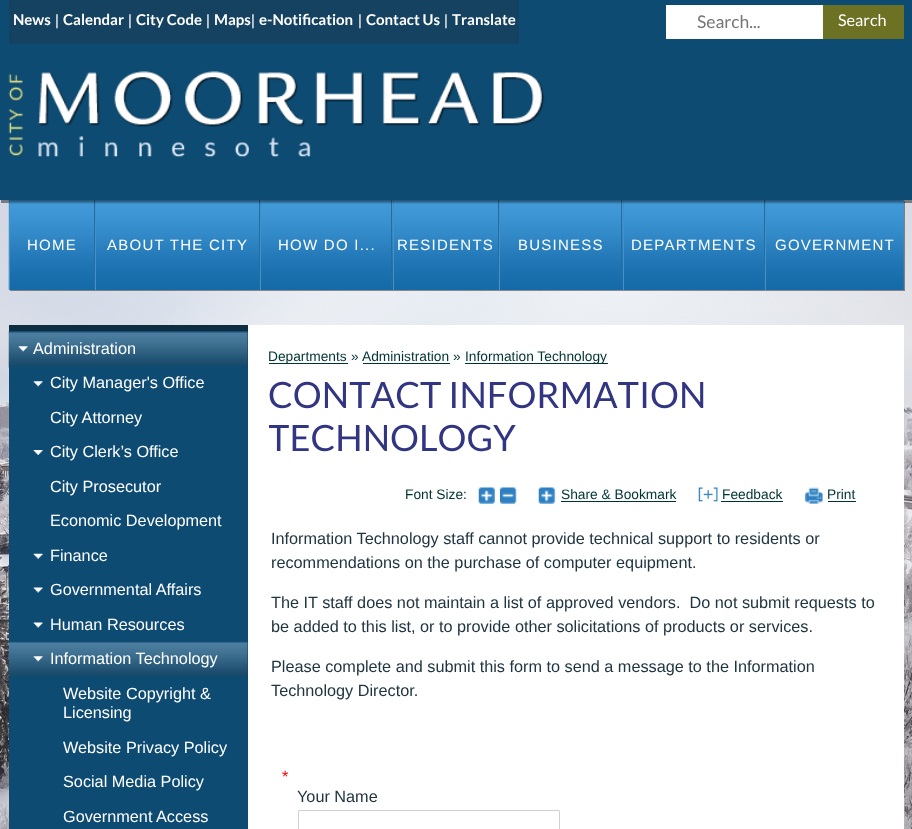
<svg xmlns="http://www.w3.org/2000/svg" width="912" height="829">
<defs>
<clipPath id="clip1"><rect x="269" y="374" width="587" height="87"/></clipPath>
</defs>
<rect width="100%" height="100%" fill="#fff"/>
<image x="0" y="200" width="912" height="629" href="media/1.png"/>
<rect x="1" y="3" width="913" height="200" fill="#0000006e" filter="blur(0.5px)"/>
<rect width="912" height="200" fill="#0e4b73"/>
<rect x="9" width="510" height="44" fill="#154260"/>
<text x="13" y="25" style="font-family:Lato;font-size:15px;font-weight:bold;fill:#fff">News</text>
<text x="55" y="25" style="font-family:Liberation Sans;font-size:15px;fill:#fff">|</text>
<text x="63" y="25" style="font-family:Lato;font-size:15px;font-weight:bold;fill:#fff">Calendar</text>
<text x="128" y="25" style="font-family:Liberation Sans;font-size:15px;fill:#fff">|</text>
<text x="136" y="25" style="font-family:Lato;font-size:15px;font-weight:bold;fill:#fff">City Code</text>
<text x="206" y="25" style="font-family:Liberation Sans;font-size:15px;fill:#fff">|</text>
<text x="214" y="25" style="font-family:Lato;font-size:15px;font-weight:bold;fill:#fff">Maps</text>
<text x="251" y="25" style="font-family:Liberation Sans;font-size:15px;fill:#fff">|</text>
<text x="259" y="25" style="font-family:Lato;font-size:15px;font-weight:bold;fill:#fff">e-Notification</text>
<text x="358" y="25" style="font-family:Liberation Sans;font-size:15px;fill:#fff">|</text>
<text x="366" y="25" style="font-family:Lato;font-size:15px;font-weight:bold;fill:#fff">Contact Us</text>
<text x="444" y="25" style="font-family:Liberation Sans;font-size:15px;fill:#fff">|</text>
<text x="452" y="25" style="font-family:Lato;font-size:15px;font-weight:bold;fill:#fff">Translate</text>
<rect x="666" y="5" width="157" height="34" fill="#fff"/>
<text x="697" y="28" style="font-family:Lato;font-size:17.5px;fill:#757575">Search...</text>
<rect x="823" y="5" width="81" height="34" fill="#6d7124"/>
<text x="838" y="26" style="font-family:Lato;font-size:16.25px;fill:#fff">Search</text>
<image x="8" y="71" width="537" height="86" href="media/2.png"/>
<rect x="248" y="325" width="656" height="504" fill="#fff"/>
<rect x="10" y="201" width="895" height="90" fill="#0000006b" filter="blur(0.5px)"/>
<image x="8" y="200" width="896" height="90" href="media/3.png"/>
<rect x="94" y="200" width="1" height="90" fill="#206ea5"/>
<rect x="9" y="200" width="1" height="90" fill="#488fc3"/>
<rect x="259" y="200" width="1" height="90" fill="#206ea5"/>
<rect x="95" y="200" width="1" height="90" fill="#488fc3"/>
<rect x="391" y="200" width="1" height="90" fill="#206ea5"/>
<rect x="260" y="200" width="1" height="90" fill="#488fc3"/>
<rect x="498" y="200" width="1" height="90" fill="#206ea5"/>
<rect x="393" y="200" width="1" height="90" fill="#488fc3"/>
<rect x="621" y="200" width="1" height="90" fill="#206ea5"/>
<rect x="499" y="200" width="1" height="90" fill="#488fc3"/>
<rect x="764" y="200" width="1" height="90" fill="#206ea5"/>
<rect x="623" y="200" width="1" height="90" fill="#488fc3"/>
<rect x="765" y="200" width="1" height="90" fill="#488fc3"/>
<image x="8" y="200" width="896" height="4" href="media/4.png"/>
<text x="27" y="250" style="font-family:Liberation Sans;font-size:15px;letter-spacing:1.25px;fill:#fff">HOME</text>
<text x="107" y="250" style="font-family:Liberation Sans;font-size:15px;letter-spacing:1.25px;fill:#fff">ABOUT THE CITY</text>
<text x="278" y="250" style="font-family:Liberation Sans;font-size:15px;letter-spacing:1.25px;fill:#fff">HOW DO I...</text>
<text x="397" y="250" style="font-family:Liberation Sans;font-size:15px;letter-spacing:1.25px;fill:#fff">RESIDENTS</text>
<text x="518" y="250" style="font-family:Liberation Sans;font-size:15px;letter-spacing:1.25px;fill:#fff">BUSINESS</text>
<text x="631" y="250" style="font-family:Liberation Sans;font-size:15px;letter-spacing:1.25px;fill:#fff">DEPARTMENTS</text>
<text x="775" y="250" style="font-family:Liberation Sans;font-size:15px;letter-spacing:1.25px;fill:#fff">GOVERNMENT</text>
<rect x="9" y="325" width="239" height="6" fill="#0e2d40"/>
<rect x="9" y="331" width="239" height="35" fill="#124465"/>
<image x="8" y="331" width="240" height="37" href="media/5.png"/>
<image x="18" y="346" width="10" height="6" href="media/6.png"/>
<text x="33" y="354" style="font-family:Liberation Sans;font-size:16.25px;fill:#fff">Administration</text>
<rect x="9" y="366" width="239" height="275" fill="#0e4b73"/>
<image x="33" y="381" width="10" height="6" href="media/7.png"/>
<text x="50" y="388" style="font-family:Liberation Sans;font-size:16.25px;fill:#fff">City Manager's Office</text>
<text x="50" y="423" style="font-family:Liberation Sans;font-size:16.25px;fill:#fff">City Attorney</text>
<image x="33" y="450" width="10" height="5" href="media/8.png"/>
<text x="50" y="457" style="font-family:Liberation Sans;font-size:16.25px;fill:#fff">City Clerk’s Office</text>
<text x="50" y="492" style="font-family:Liberation Sans;font-size:16.25px;fill:#fff">City Prosecutor</text>
<text x="50" y="526" style="font-family:Liberation Sans;font-size:16.25px;fill:#fff">Economic Development</text>
<image x="33" y="553" width="10" height="6" href="media/9.png"/>
<text x="50" y="561" style="font-family:Liberation Sans;font-size:16.25px;fill:#fff">Finance</text>
<image x="33" y="587" width="10" height="6" href="media/10.png"/>
<text x="50" y="595" style="font-family:Liberation Sans;font-size:16.25px;fill:#fff">Governmental Affairs</text>
<image x="33" y="622" width="10" height="6" href="media/10.png"/>
<text x="50" y="630" style="font-family:Liberation Sans;font-size:16.25px;fill:#fff">Human Resources</text>
<rect x="9" y="641" width="239" height="35" fill="#124465"/>
<image x="8" y="641" width="240" height="37" href="media/11.png"/>
<image x="33" y="656" width="10" height="6" href="media/6.png"/>
<text x="50" y="664" style="font-family:Liberation Sans;font-size:16.25px;fill:#fff">Information Technology</text>
<rect x="9" y="676" width="239" height="153" fill="#0e4b73"/>
<text x="63" y="699" style="font-family:Liberation Sans;font-size:16.25px;fill:#fff">Website Copyright &amp;</text>
<text x="63" y="718" style="font-family:Liberation Sans;font-size:16.25px;fill:#fff">Licensing</text>
<text x="63" y="753" style="font-family:Liberation Sans;font-size:16.25px;fill:#fff">Website Privacy Policy</text>
<text x="63" y="787" style="font-family:Liberation Sans;font-size:16.25px;fill:#fff">Social Media Policy</text>
<text x="63" y="822" style="font-family:Liberation Sans;font-size:16.25px;fill:#fff">Government Access</text>
<rect x="269" y="363" width="79" height="1" fill="#033"/>
<text x="268" y="361" style="font-family:Liberation Sans;font-size:13.75px;fill:#033">Departments</text>
<text x="351" y="361" style="font-family:Liberation Sans;font-size:13.75px;fill:#033">»</text>
<text x="362" y="361" style="font-family:Liberation Sans;font-size:13.75px;fill:#033">Administration »</text>
<rect x="363" y="363" width="87" height="1" fill="#033"/>
<rect x="465" y="363" width="143" height="1" fill="#033"/>
<text x="465" y="361" style="font-family:Liberation Sans;font-size:13.75px;fill:#033">Information Technology</text>
<text x="268" y="408" style="font-family:Lato;font-size:36.25px;fill:#313582">CONTACT INFORMATION</text>
<g clip-path="url(#clip1)">
<text x="268" y="451" style="font-family:Lato;font-size:36.25px;fill:#313582">TECHNOLOGY</text>
</g>
<text x="405" y="499" style="font-family:Liberation Sans;font-size:13.75px;fill:#033">Font Size:</text>
<image x="478" y="487" width="17" height="17" href="media/12.png"/>
<image x="500" y="487" width="17" height="17" href="media/13.png"/>
<image x="538" y="487" width="18" height="17" href="media/14.png"/>
<text x="561" y="499" style="font-family:Liberation Sans;font-size:13.75px;fill:#033">Share &amp; Bookmark</text>
<rect x="561" y="501" width="115" height="1" fill="#033"/>
<image x="698" y="487" width="20" height="15" href="media/15.png"/>
<text x="722" y="499" style="font-family:Liberation Sans;font-size:13.75px;fill:#033">Feedback</text>
<rect x="721" y="501" width="62" height="1" fill="#033"/>
<image x="805" y="487" width="18" height="17" href="media/16.png"/>
<text x="827" y="499" style="font-family:Liberation Sans;font-size:13.75px;fill:#033">Print</text>
<rect x="828" y="501" width="28" height="1" fill="#033"/>
<text x="271" y="544" style="font-family:Liberation Sans;font-size:16.25px;fill:#203542">Information Technology staff cannot provide technical support to residents or</text>
<text x="271" y="568" style="font-family:Liberation Sans;font-size:16.25px;fill:#203542">recommendations on the purchase of computer equipment.</text>
<text x="271" y="608" style="font-family:Liberation Sans;font-size:16.25px;fill:#203542" xml:space="preserve">The IT staff does not maintain a list of approved vendors.  Do not submit requests to</text>
<text x="271" y="632" style="font-family:Liberation Sans;font-size:16.25px;fill:#203542">be added to this list, or to provide other solicitations of products or services.</text>
<text x="271" y="672" style="font-family:Liberation Sans;font-size:16.25px;fill:#203542">Please complete and submit this form to send a message to the Information</text>
<text x="271" y="696" style="font-family:Liberation Sans;font-size:16.25px;fill:#203542">Technology Director.</text>
<text x="282" y="782" style="font-family:Liberation Sans;font-size:16.25px;fill:#f00">*</text>
<text x="297" y="802" style="font-family:Liberation Sans;font-size:16.25px;fill:#203542">Your Name</text>
<rect x="298.5" y="810.5" width="261" height="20" rx="0.5" fill="none" stroke="#d0d0d0"/>
</svg>
